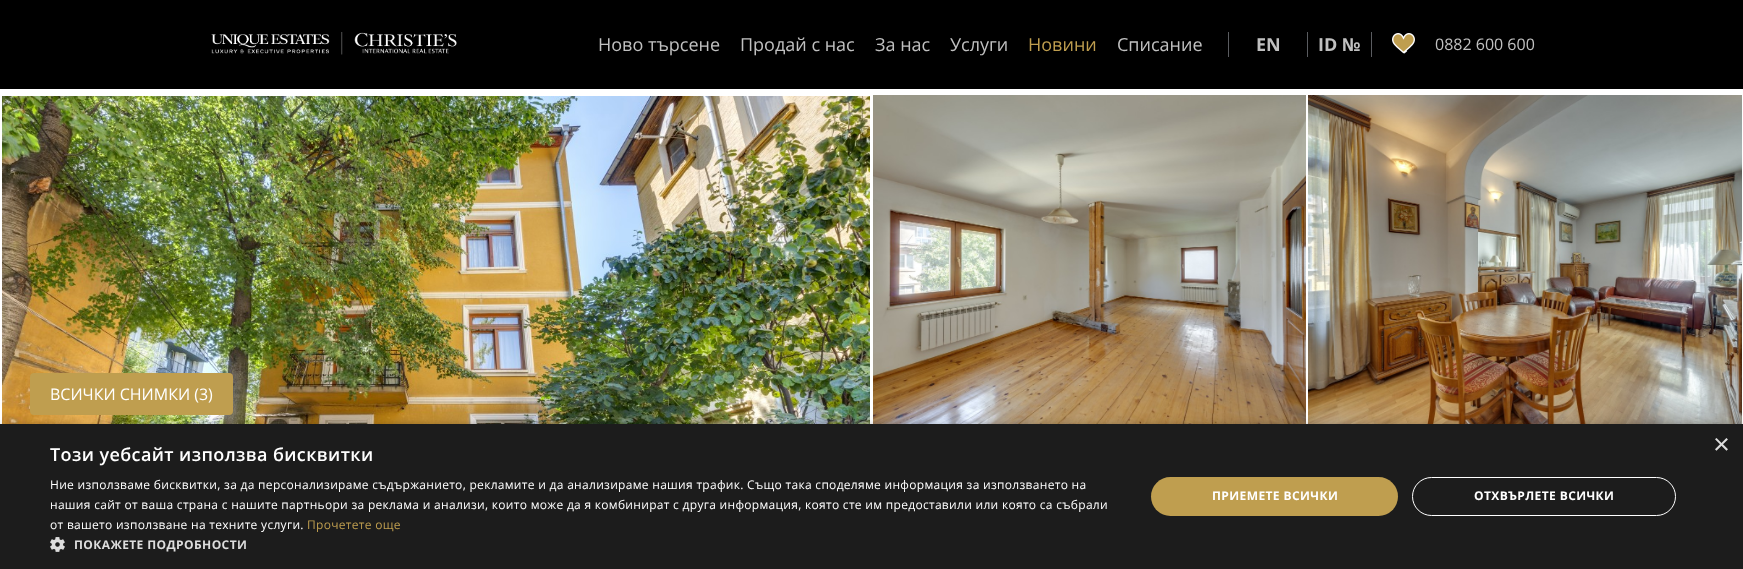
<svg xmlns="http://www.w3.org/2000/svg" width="1743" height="569">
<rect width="100%" height="100%" fill="#fff"/>
<rect width="1743" height="89" fill="#000"/>
<image x="211" y="32" width="246" height="23" href="media/1.png"/>
<rect x="1228" y="32" width="1" height="25" fill="#5a5c60"/>
<text x="598" y="51" style="font-family:Open Sans;font-size:18px;fill:#c0c0c0">Ново търсене</text>
<text x="740" y="51" style="font-family:Open Sans;font-size:18px;fill:#c0c0c0">Продай с нас</text>
<text x="875" y="51" style="font-family:Open Sans;font-size:18px;fill:#c0c0c0">За нас</text>
<text x="950" y="51" style="font-family:Open Sans;font-size:18px;fill:#c0c0c0">Услуги</text>
<text x="1028" y="51" style="font-family:Open Sans;font-size:18px;fill:#bf9e4f">Новини</text>
<text x="1117" y="51" style="font-family:Open Sans;font-size:18px;fill:#c0c0c0">Списание</text>
<rect x="1307" y="32" width="1" height="25" fill="#5a5c60"/>
<text x="1256" y="51" style="font-family:Open Sans;font-size:18px;font-weight:bold;fill:#c0c0c0">EN</text>
<rect x="1371" y="32" width="1" height="25" fill="#5a5c60"/>
<text x="1318" y="51" style="font-family:Open Sans;font-size:18px;font-weight:bold;fill:#c0c0c0">ID №</text>
<image x="1392" y="33" width="23" height="21" href="media/2.png"/>
<text x="1435" y="50" style="font-family:Open Sans;font-size:16px;fill:#c0c0c0">0882 600 600</text>
<image x="2" y="96" width="868" height="328" href="media/3.png"/>
<image x="873" y="95" width="433" height="329" href="media/4.png"/>
<image x="1308" y="95" width="434" height="329" href="media/5.png"/>
<rect x="30" y="373" width="203" height="42" rx="4" fill="#bf9e4f"/>
<text x="50" y="400" style="font-family:Open Sans;font-size:16px;fill:#fff">ВСИЧКИ СНИМКИ (3)</text>
<rect x="1" y="426" width="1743" height="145" fill="#00000059" filter="blur(4px)"/>
<rect y="424" width="1743" height="145" fill="#1c1c1c"/>
<text x="1713" y="454" style="font-family:Liberation Sans;font-size:29px;fill:#ddd">×</text>
<text x="50" y="461" style="font-family:Open Sans;font-size:18px;font-weight:600;letter-spacing:0.4px;fill:#fff">Този уебсайт използва бисквитки</text>
<text x="50" y="489" style="font-family:Open Sans;font-size:12px;letter-spacing:0.3px;fill:#fff">Ние използваме бисквитки, за да персонализираме съдържанието, рекламите и да анализираме нашия трафик. Също така споделяме информация за използването на</text>
<text x="50" y="509" style="font-family:Open Sans;font-size:12px;letter-spacing:0.3px;fill:#fff">нашия сайт от ваша страна с нашите партньори за реклама и анализи, които може да я комбинират с друга информация, която сте им предоставили или която са събрали</text>
<text x="50" y="529" style="font-family:Open Sans;font-size:12px;letter-spacing:0.3px;fill:#fff">от вашето използване на техните услуги.</text>
<text x="307" y="529" style="font-family:Open Sans;font-size:12px;letter-spacing:0.3px;fill:#bf9e4f">Прочетете още</text>
<image x="50" y="537" width="15" height="15" href="media/6.png"/>
<text x="74" y="549" style="font-family:Open Sans;font-size:12px;font-weight:bold;letter-spacing:0.4px;fill:#ddd">ПОКАЖЕТЕ ПОДРОБНОСТИ</text>
<rect x="1151" y="477" width="247" height="39" rx="19.5" fill="#bf9e4f"/>
<text x="1212" y="500" style="font-family:Open Sans;font-size:12px;font-weight:bold;letter-spacing:0.4px;fill:#fff">ПРИЕМЕТЕ ВСИЧКИ</text>
<rect x="1412.5" y="477.5" width="263" height="38" rx="19" fill="none" stroke="#fff"/>
<text x="1474" y="500" style="font-family:Open Sans;font-size:12px;font-weight:bold;letter-spacing:0.4px;fill:#fff">ОТХВЪРЛЕТЕ ВСИЧКИ</text>
</svg>
